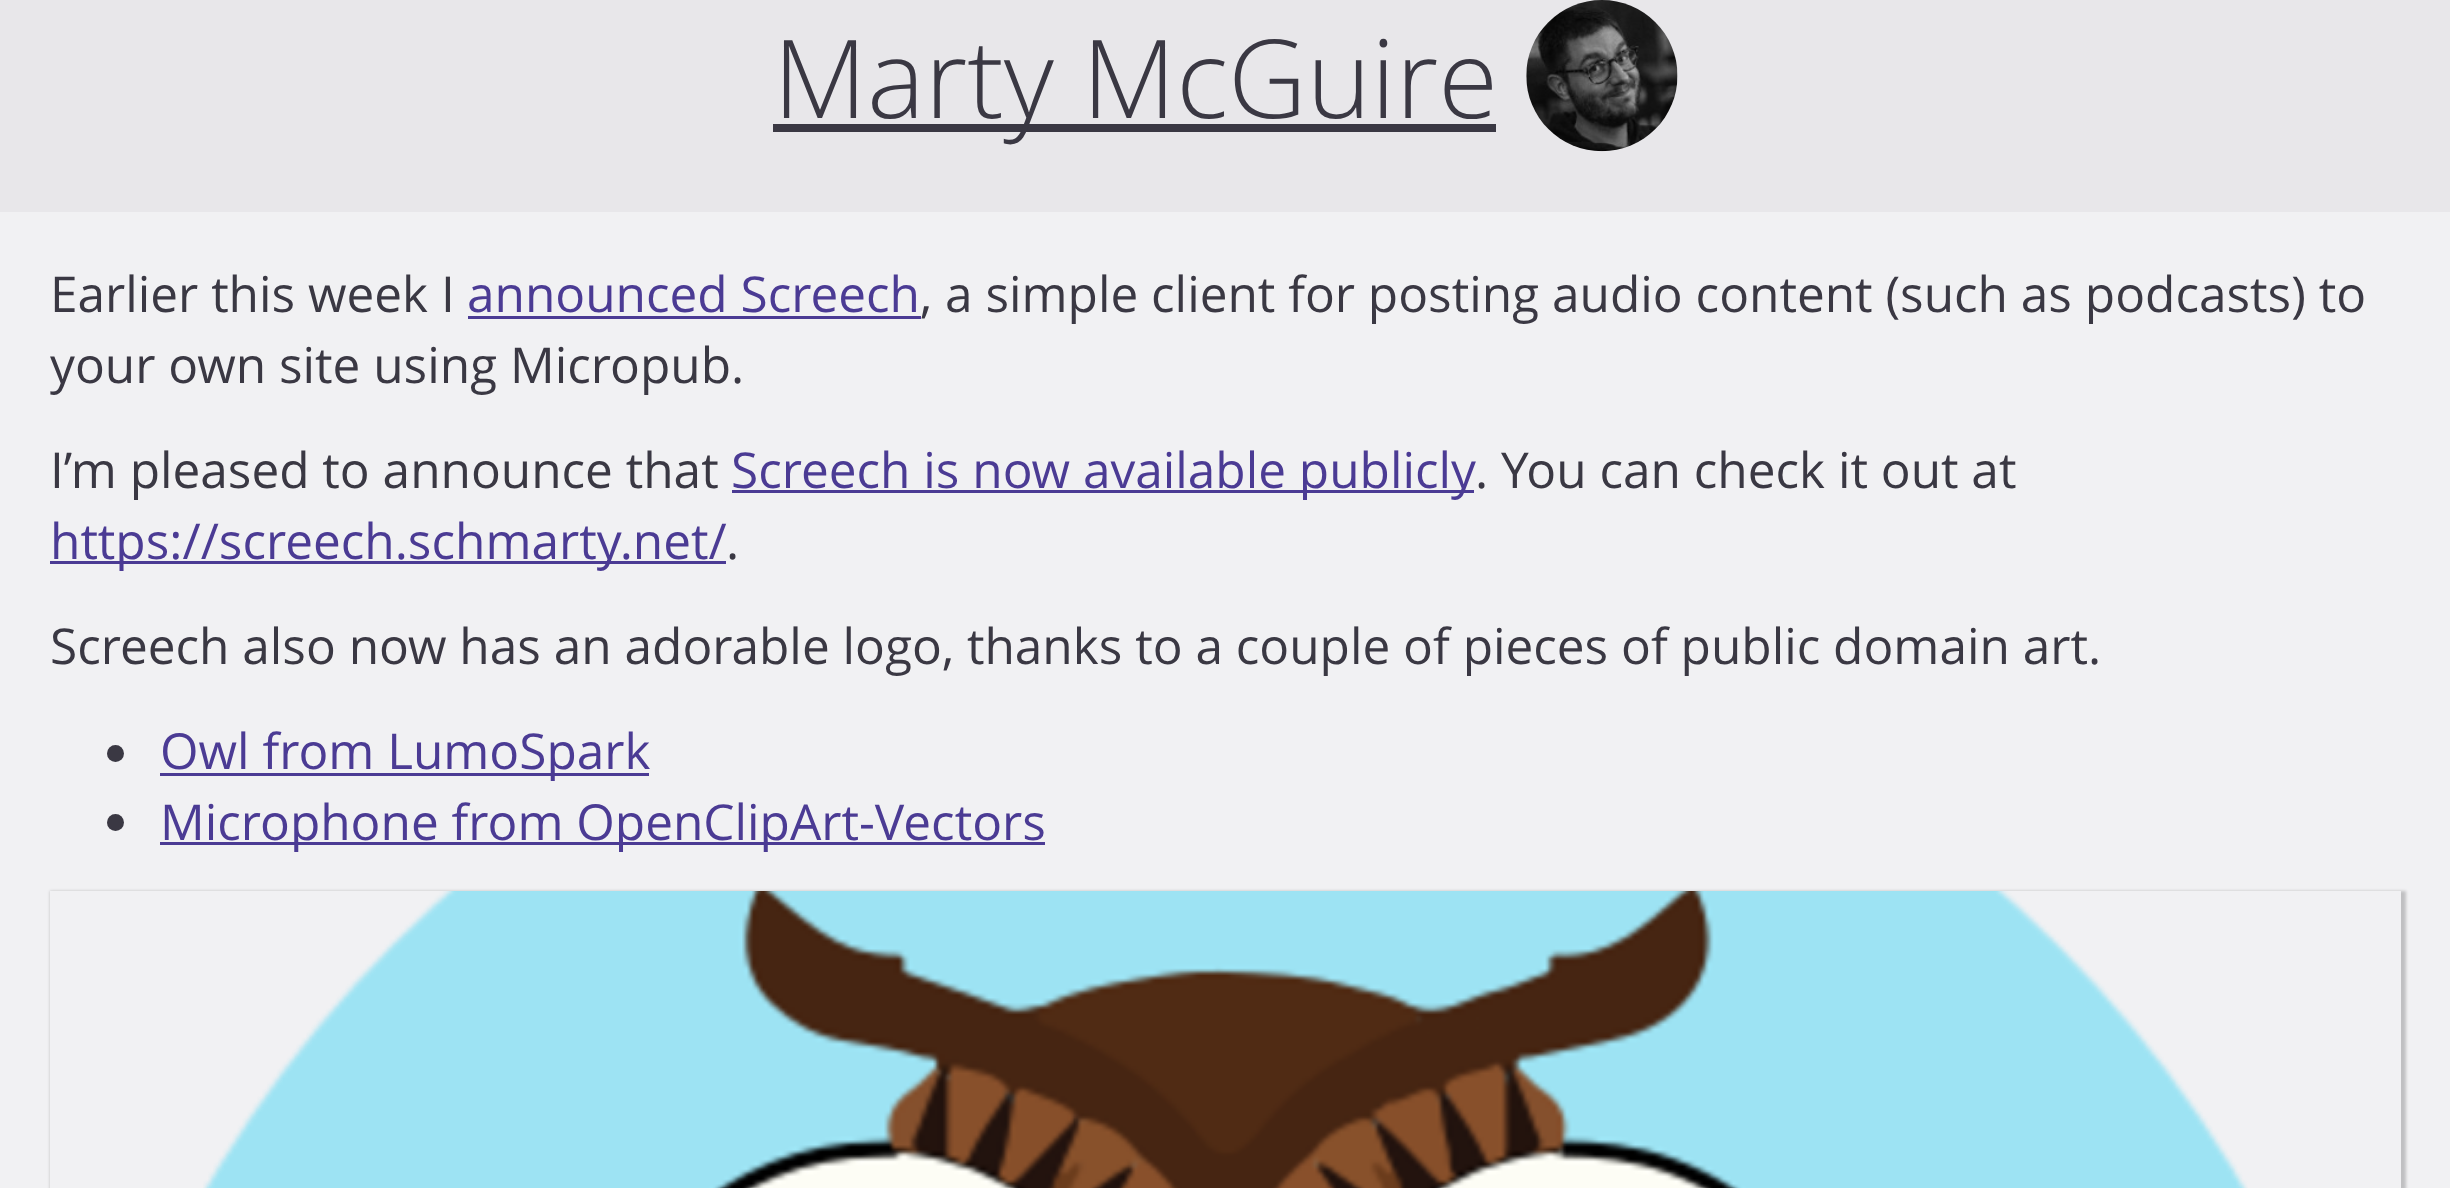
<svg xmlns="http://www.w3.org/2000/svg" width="2450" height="1188">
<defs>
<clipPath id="clip1"><path d="M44 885h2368v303h-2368zm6 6h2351v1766h-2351z" clip-rule="evenodd"/></clipPath>
</defs>
<rect width="100%" height="100%" fill="#e8e7ea"/>
<rect x="773" y="124" width="723" height="8" fill="#3a3843"/>
<text x="773" y="118" style="font-family:Open Sans;font-size:109px;font-weight:300;fill:#3a3843">Marty McGuire</text>
<image x="1526" y="0" width="152" height="152" href="media/1.png"/>
<rect y="212" width="2450" height="976" fill="#f1f1f3"/>
<text x="50" y="312" style="font-family:Open Sans;font-size:49.5px;fill:#3a3843">Earlier this week I</text>
<text x="467" y="312" style="font-family:Open Sans;font-size:49.5px;fill:#4b3b94">announced Screech</text>
<rect x="468" y="316" width="453" height="3" fill="#4b3b94"/>
<text x="920" y="312" style="font-family:Open Sans;font-size:49.5px;fill:#3a3843">, a simple client for posting audio content (such as podcasts) to</text>
<text x="50" y="383" style="font-family:Open Sans;font-size:49.5px;fill:#3a3843">your own site using Micropub.</text>
<text x="50" y="488" style="font-family:Open Sans;font-size:49.5px;fill:#3a3843">I’m pleased to announce that</text>
<rect x="732" y="490" width="742" height="3" fill="#4b3b94"/>
<text x="731" y="488" style="font-family:Open Sans;font-size:49.5px;fill:#4b3b94">Screech is now available publicly</text>
<text x="1475" y="488" style="font-family:Open Sans;font-size:49.5px;fill:#3a3843">. You can check it out at</text>
<rect x="50" y="561" width="676" height="3" fill="#4b3b94"/>
<text x="50" y="559" style="font-family:Open Sans;font-size:49.5px;fill:#4b3b94">https://screech.schmarty.net/</text>
<text x="726" y="559" style="font-family:Open Sans;font-size:49.5px;fill:#3a3843">.</text>
<text x="50" y="664" style="font-family:Open Sans;font-size:49.5px;fill:#3a3843">Screech also now has an adorable logo, thanks to a couple of pieces of public domain art.</text>
<circle cx="115.5" cy="753.5" r="8.5" fill="#3a3843"/>
<rect x="160" y="773" width="489" height="3" fill="#4b3b94"/>
<text x="160" y="769" style="font-family:Open Sans;font-size:49.5px;fill:#4b3b94">Owl from LumoSpark</text>
<circle cx="115.5" cy="822.5" r="8.5" fill="#3a3843"/>
<rect x="160" y="842" width="885" height="3" fill="#4b3b94"/>
<text x="160" y="840" style="font-family:Open Sans;font-size:49.5px;fill:#4b3b94">Microphone from OpenClipArt-Vectors</text>
<g clip-path="url(#clip1)">
<rect x="50" y="891" width="2356" height="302" fill="#00000033" filter="blur(1.5px)"/>
</g>
<image x="203" y="891" width="2045" height="297" href="media/2.png"/>
</svg>
